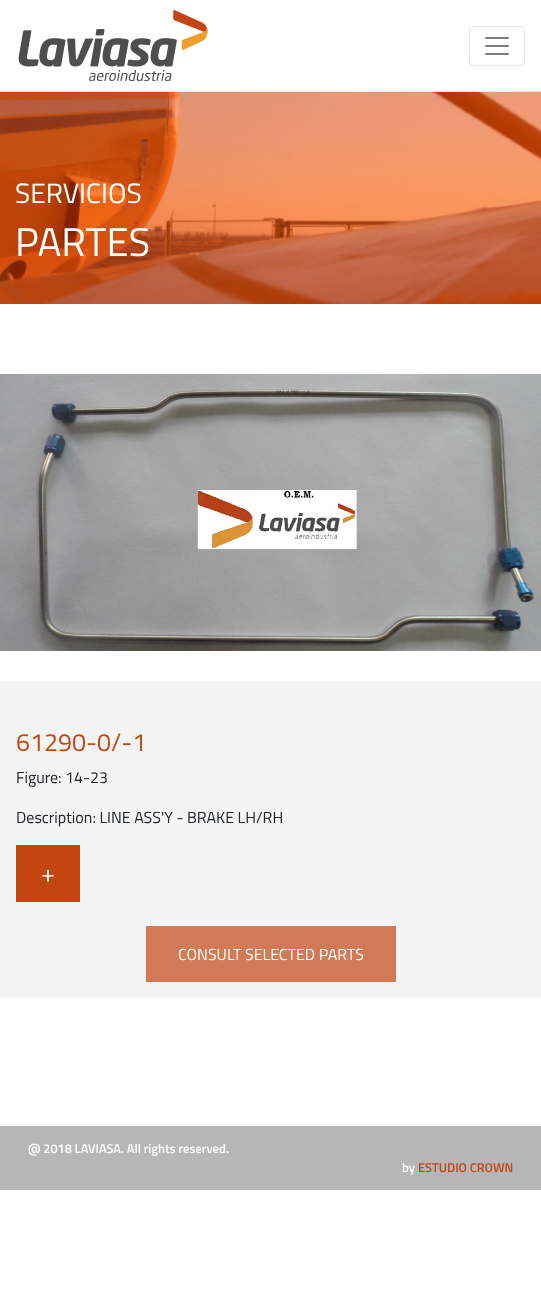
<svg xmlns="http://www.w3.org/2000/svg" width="541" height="1306">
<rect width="100%" height="100%" fill="#fff"/>
<rect y="91" width="541" height="1" fill="#e9e9ea"/>
<image x="18" y="10" width="190" height="72" href="media/1.png"/>
<rect x="469.5" y="26.5" width="55" height="39" rx="3.5" fill="none" stroke="#e6e6e6"/>
<image x="485" y="37" width="24" height="18" href="media/2.png"/>
<image x="0" y="92" width="541" height="212" href="media/3.png"/>
<text x="15" y="203" style="font-family:Titillium Web;font-size:28px;fill:#fff">SERVICIOS</text>
<text x="15" y="256" style="font-family:Titillium Web;font-size:40px;fill:#fff">PARTES</text>
<image x="0" y="374" width="541" height="277" href="media/4.png"/>
<rect y="681" width="541" height="317" fill="#f4f4f4"/>
<text x="16" y="751" style="font-family:Titillium Web;font-size:25px;fill:#c44511">61290-0/-1</text>
<text x="16" y="783" style="font-family:Titillium Web;font-size:16px;fill:#212529">Figure: 14-23</text>
<text x="16" y="823" style="font-family:Titillium Web;font-size:16px;fill:#212529">Description: LINE ASS'Y - BRAKE LH/RH</text>
<rect x="16" y="845" width="64" height="57" fill="#c44511"/>
<text x="41" y="882" style="font-family:Titillium Web;font-size:25px;fill:#fff">+</text>
<rect x="146" y="926" width="250" height="56" fill="#d27a55"/>
<text x="178" y="960" style="font-family:Titillium Web;font-size:16px;fill:#fff">CONSULT SELECTED PARTS</text>
<rect y="1126" width="541" height="64" fill="#b6b6b6"/>
<text x="28" y="1153" style="font-family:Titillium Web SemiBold;font-size:12.75px;font-weight:600;fill:#fff">@ 2018 LAVIASA. All rights reserved.</text>
<text x="402" y="1172" style="font-family:Titillium Web SemiBold;font-size:12.75px;font-weight:600;fill:#fff">by</text>
<text x="418" y="1172" style="font-family:Titillium Web SemiBold;font-size:12.75px;font-weight:600;fill:#c44511">ESTUDIO CROWN</text>
</svg>
